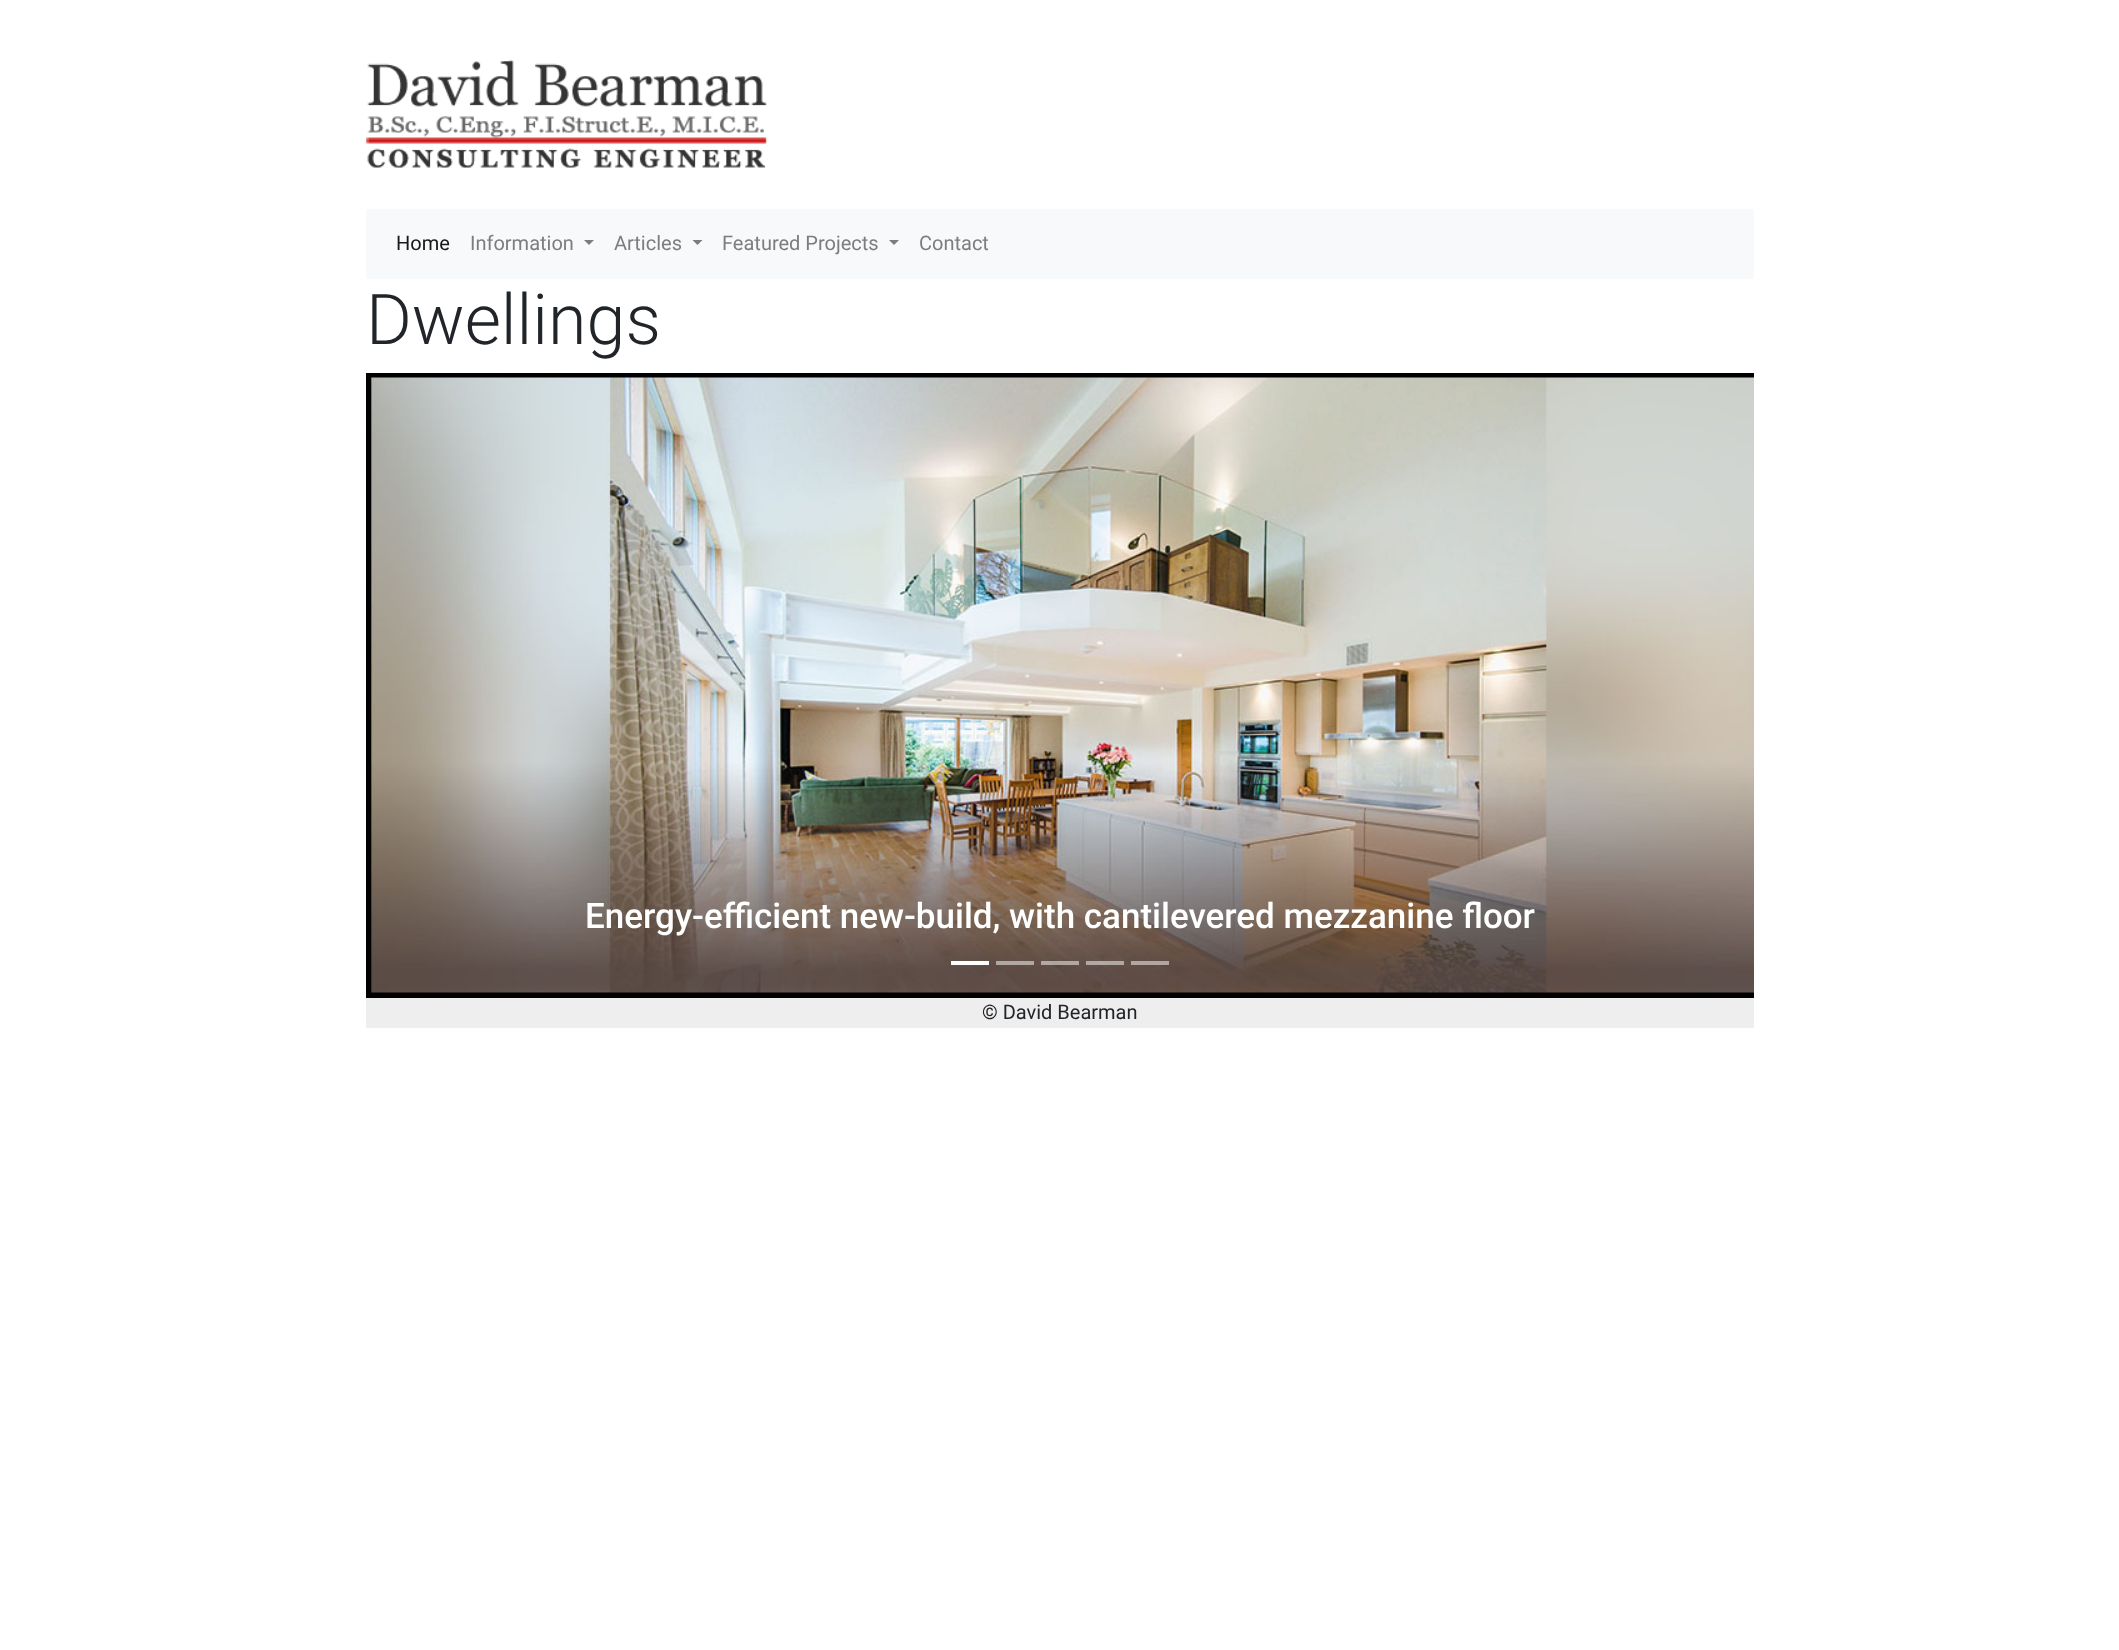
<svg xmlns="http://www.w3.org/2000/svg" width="2119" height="1650">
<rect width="100%" height="100%" fill="#fff"/>
<image x="366" y="60" width="401" height="108" href="media/1.png"/>
<rect x="366" y="209" width="1388" height="70" fill="#f8f9fa"/>
<text x="396" y="250" style="font-family:Roboto;font-size:20px;fill:#191919">Home</text>
<text x="470" y="250" style="font-family:Roboto;font-size:20px;fill:#7c7d7d">Information</text>
<path d="M584 240h10l-5 5z" fill="#7c7d7d"/>
<text x="614" y="250" style="font-family:Roboto;font-size:20px;fill:#7c7d7d">Articles</text>
<path d="M692.5 240h10l-5 5z" fill="#7c7d7d"/>
<text x="722" y="250" style="font-family:Roboto;font-size:20px;fill:#7c7d7d">Featured Projects</text>
<path d="M889 240h10l-5 5z" fill="#7c7d7d"/>
<text x="919" y="250" style="font-family:Roboto;font-size:20px;fill:#7c7d7d">Contact</text>
<text x="366" y="344" style="font-family:Roboto;font-size:70px;font-weight:300;fill:#212529">Dwellings</text>
<image x="366" y="373" width="1388" height="625" href="media/2.png"/>
<text x="585" y="928" style="font-family:Roboto;font-size:35px;font-weight:500;fill:#fff">Energy-efficient new-build, with cantilevered mezzanine floor</text>
<rect x="951" y="961" width="38" height="4" fill="#fff"/>
<rect x="996" y="961" width="38" height="4" fill="#ffffff80"/>
<rect x="1041" y="961" width="38" height="4" fill="#ffffff80"/>
<rect x="1086" y="961" width="38" height="4" fill="#ffffff80"/>
<rect x="1131" y="961" width="38" height="4" fill="#ffffff80"/>
<rect x="366" y="998" width="1388" height="30" fill="#eee"/>
<text x="982" y="1019" style="font-family:Roboto;font-size:20px;fill:#212529">© David Bearman</text>
</svg>
